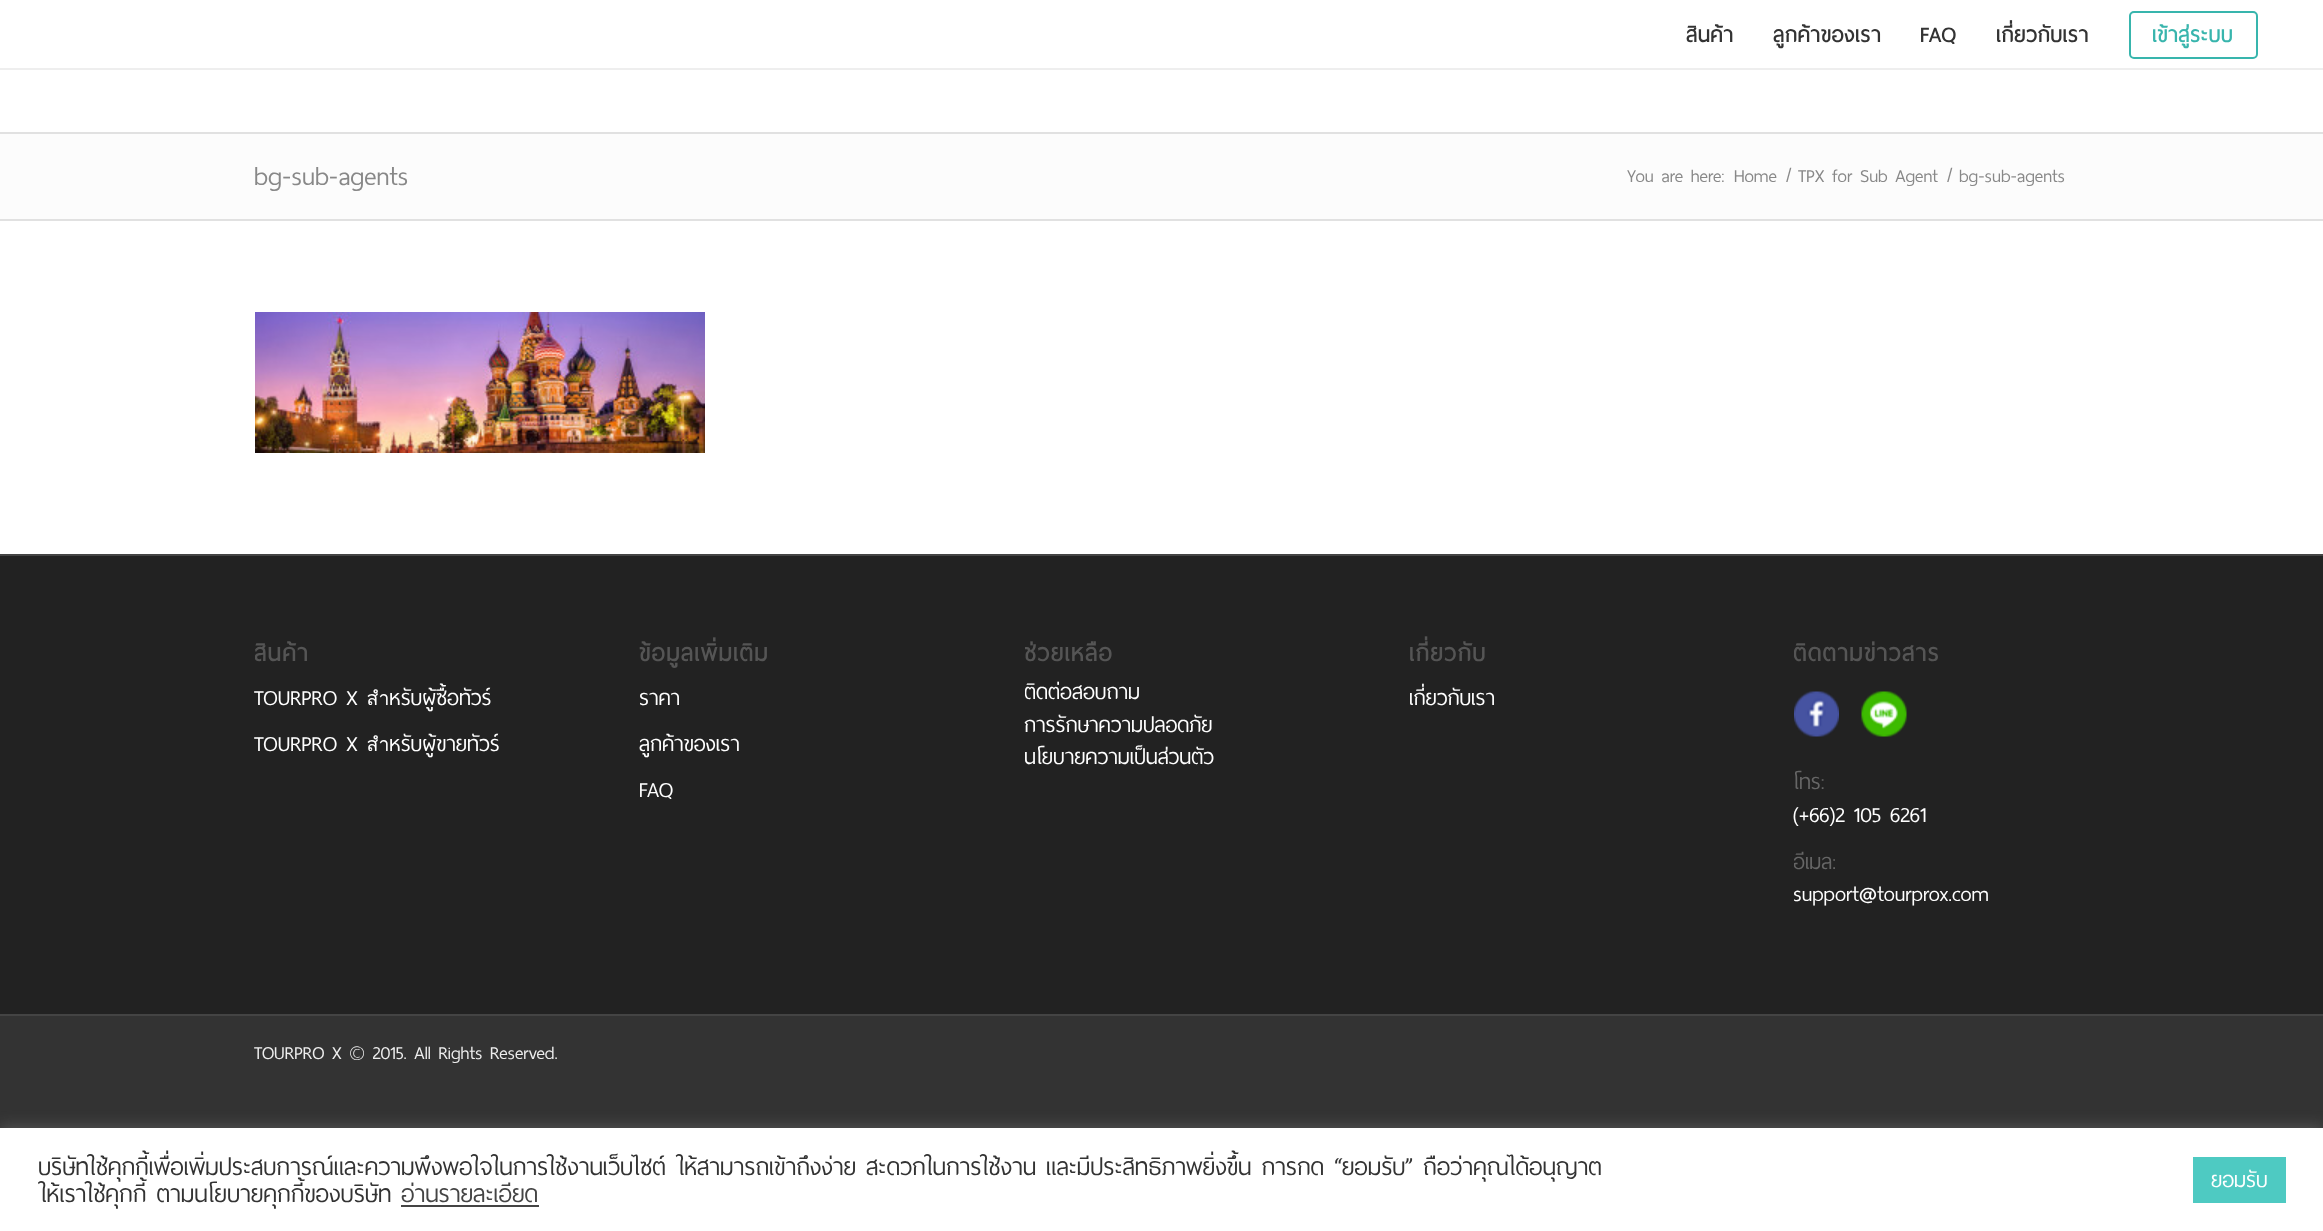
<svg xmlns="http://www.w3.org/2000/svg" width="2323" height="1231">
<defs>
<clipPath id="clip1"><rect x="255" y="623" width="275" height="145"/></clipPath>
<clipPath id="clip2"><rect x="639" y="623" width="276" height="192"/></clipPath>
<clipPath id="clip3"><rect x="1025" y="623" width="274" height="151"/></clipPath>
<clipPath id="clip4"><rect x="1025" y="677" width="274" height="97"/></clipPath>
<clipPath id="clip5"><rect x="1409" y="623" width="276" height="100"/></clipPath>
<clipPath id="clip6"><rect x="1794" y="623" width="275" height="303"/></clipPath>
<clipPath id="clip7"><rect x="1794" y="767" width="275" height="159"/></clipPath>
</defs>
<rect width="100%" height="100%" fill="#333"/>
<rect width="2323" height="554" fill="#fff"/>
<rect y="68" width="2323" height="2" fill="#eee"/>
<text x="1686" y="42" style="font-family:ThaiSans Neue;font-size:19.5px;font-weight:bold;letter-spacing:0.75px;fill:#333">สินค้า</text>
<text x="1773" y="42" style="font-family:ThaiSans Neue;font-size:19.5px;font-weight:bold;letter-spacing:0.75px;fill:#333">ลูกค้าของเรา</text>
<text x="1920" y="42" style="font-family:ThaiSans Neue;font-size:19.5px;font-weight:bold;letter-spacing:0.75px;fill:#333">FAQ</text>
<text x="1996" y="42" style="font-family:ThaiSans Neue;font-size:19.5px;font-weight:bold;letter-spacing:0.75px;fill:#333">เกี่ยวกับเรา</text>
<rect x="2130" y="12" width="127" height="46" rx="4" fill="none" stroke="#38b5ad" stroke-width="2"/>
<text x="2152" y="42" style="font-family:ThaiSans Neue;font-size:19.5px;font-weight:bold;letter-spacing:0.75px;fill:#38b5ad">เข้าสู่ระบบ</text>
<rect y="134" width="2323" height="85" fill="#fcfcfc"/>
<rect y="132" width="2323" height="2" fill="#e1e1e1"/>
<text x="254" y="185" style="font-family:ThaiSans Neue;font-size:24px;fill:#888">bg-sub-agents</text>
<text x="1627" y="182" style="font-family:ThaiSans Neue;font-size:16.5px;fill:#888">You are here:</text>
<text x="1734" y="182" style="font-family:ThaiSans Neue;font-size:16.5px;fill:#888">Home</text>
<text x="1786" y="182" style="font-family:ThaiSans Neue;font-size:16.5px;fill:#888">/</text>
<text x="1798" y="182" style="font-family:ThaiSans Neue;font-size:16.5px;fill:#888">TPX for Sub Agent</text>
<text x="1947" y="182" style="font-family:ThaiSans Neue;font-size:16.5px;fill:#888">/</text>
<text x="1959" y="182" style="font-family:ThaiSans Neue;font-size:16.5px;fill:#888">bg-sub-agents</text>
<rect y="219" width="2323" height="2" fill="#e1e1e1"/>
<image x="255" y="312" width="450" height="141" href="media/1.png"/>
<rect y="556" width="2323" height="458" fill="#222"/>
<rect y="554" width="2323" height="2" fill="#444"/>
<g clip-path="url(#clip1)">
<text x="254" y="661" style="font-family:ThaiSans Neue;font-size:21.5px;font-weight:bold;letter-spacing:1.5px;fill:#555">สินค้า</text>
</g>
<text x="254" y="705" style="font-family:ThaiSans Neue;font-size:19.5px;fill:#fff">TOURPRO X สำหรับผู้ซื้อทัวร์</text>
<text x="254" y="751" style="font-family:ThaiSans Neue;font-size:19.5px;fill:#fff">TOURPRO X สำหรับผู้ขายทัวร์</text>
<g clip-path="url(#clip2)">
<text x="639" y="661" style="font-family:ThaiSans Neue;font-size:21.5px;font-weight:bold;letter-spacing:1.5px;fill:#555">ข้อมูลเพิ่มเติม</text>
</g>
<text x="639" y="705" style="font-family:ThaiSans Neue;font-size:19.5px;fill:#fff">ราคา</text>
<g clip-path="url(#clip2)">
<text x="639" y="751" style="font-family:ThaiSans Neue;font-size:19.5px;fill:#fff">ลูกค้าของเรา</text>
</g>
<text x="639" y="797" style="font-family:ThaiSans Neue;font-size:19.5px;fill:#fff">FAQ</text>
<g clip-path="url(#clip3)">
<text x="1024" y="661" style="font-family:ThaiSans Neue;font-size:21.5px;font-weight:bold;letter-spacing:1.5px;fill:#555">ช่วยเหลือ</text>
</g>
<g clip-path="url(#clip4)">
<text x="1024" y="699" style="font-family:ThaiSans Neue;font-size:19.5px;fill:#fff">ติดต่อสอบถาม</text>
</g>
<text x="1024" y="732" style="font-family:ThaiSans Neue;font-size:19.5px;fill:#fff">การรักษาความปลอดภัย</text>
<g clip-path="url(#clip4)">
<text x="1024" y="764" style="font-family:ThaiSans Neue;font-size:19.5px;fill:#fff">นโยบายความเป็นส่วนตัว</text>
</g>
<g clip-path="url(#clip5)">
<text x="1409" y="661" style="font-family:ThaiSans Neue;font-size:21.5px;font-weight:bold;letter-spacing:1.5px;fill:#555">เกี่ยวกับ</text>
<text x="1409" y="705" style="font-family:ThaiSans Neue;font-size:19.5px;fill:#fff">เกี่ยวกับเรา</text>
</g>
<g clip-path="url(#clip6)">
<text x="1793" y="661" style="font-family:ThaiSans Neue;font-size:21.5px;font-weight:bold;letter-spacing:1.5px;fill:#555">ติดตามข่าวสาร</text>
</g>
<image x="1794" y="691" width="45" height="46" href="media/2.png"/>
<image x="1861" y="691" width="46" height="46" href="media/3.png"/>
<text x="1793" y="789" style="font-family:ThaiSans Neue;font-size:19.5px;fill:#666">โทร:</text>
<text x="1793" y="822" style="font-family:ThaiSans Neue;font-size:19.5px;fill:#fff">(+66)2 105 6261</text>
<g clip-path="url(#clip7)">
<text x="1793" y="869" style="font-family:ThaiSans Neue;font-size:19.5px;fill:#666">อีเมล:</text>
</g>
<text x="1793" y="901" style="font-family:ThaiSans Neue;font-size:19.5px;fill:#fff">support@tourprox.com</text>
<rect y="1014" width="2323" height="2" fill="#444"/>
<text x="254" y="1059" style="font-family:ThaiSans Neue;font-size:16.5px;fill:#eee">TOURPRO X © 2015. All Rights Reserved.</text>
<rect y="1127" width="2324" height="103" fill="#acabab4d" filter="blur(7.5px)"/>
<rect y="1128" width="2323" height="103" fill="#fff"/>
<text x="38" y="1175" word-spacing="-0.25" style="font-family:ThaiSans Neue;font-size:22px;fill:#333">บริษัทใช้คุกกี้เพื่อเพิ่มประสบการณ์และความพึงพอใจในการใช้งานเว็บไซต์ ให้สามารถเข้าถึงง่าย สะดวกในการใช้งาน และมีประสิทธิภาพยิ่งขึ้น การกด “ยอมรับ” ถือว่าคุณได้อนุญาต</text>
<text x="38" y="1202" style="font-family:ThaiSans Neue;font-size:22px;fill:#333">ให้เราใช้คุกกี้ ตามนโยบายคุกกี้ของบริษัท</text>
<text x="401" y="1202" style="font-family:ThaiSans Neue;font-size:22px;fill:#444">อ่านรายละเอียด</text>
<rect x="401" y="1205" width="138" height="2" fill="#444"/>
<rect x="2193" y="1157" width="93" height="46" fill="#4ecac2"/>
<text x="2211" y="1187" style="font-family:ThaiSans Neue;font-size:19.5px;fill:#fff">ยอมรับ</text>
</svg>
